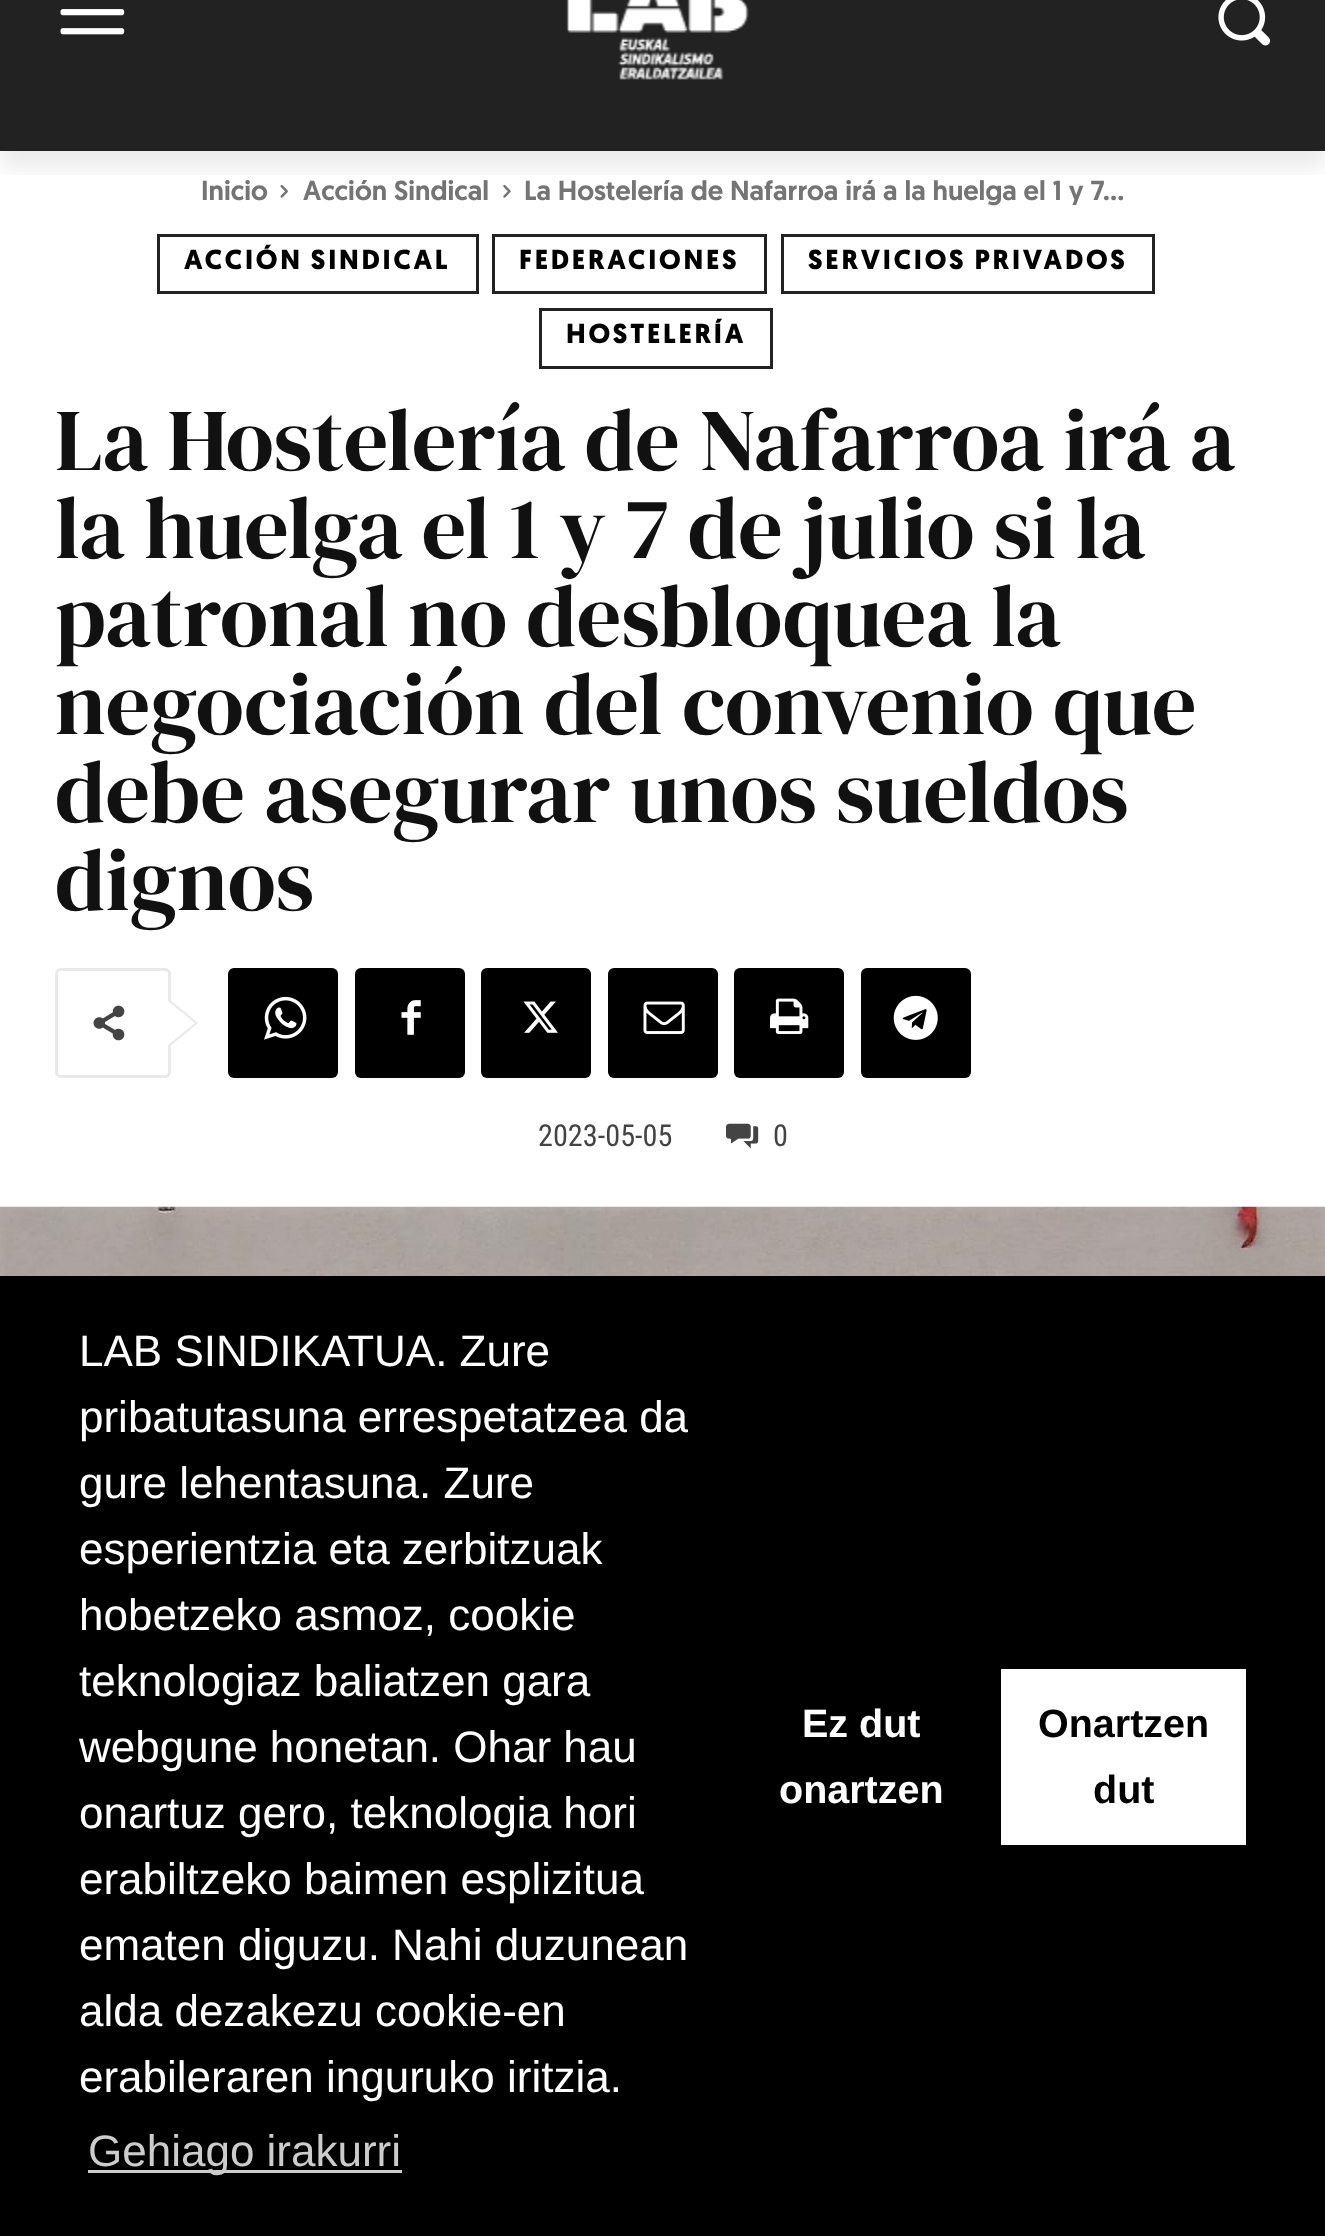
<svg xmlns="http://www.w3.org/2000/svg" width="1325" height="2236">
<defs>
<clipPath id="clip1"><rect x="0" y="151" width="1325" height="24"/></clipPath>
</defs>
<rect width="100%" height="100%" fill="#fff"/>
<rect width="1325" height="151" fill="#222"/>
<image x="60" y="9" width="65" height="26" href="media/1.png"/>
<image x="566" y="0" width="183" height="80" href="media/2.png"/>
<image x="1218" y="0" width="52" height="46" href="media/3.png"/>
<image x="280" y="184" width="8" height="14" href="media/4.png"/>
<image x="503" y="184" width="8" height="14" href="media/5.png"/>
<g clip-path="url(#clip1)">
<rect y="-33" width="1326" height="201" fill="#00000014" filter="blur(11px)"/>
</g>
<text x="201" y="200" style="font-family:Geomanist;font-size:27.5px;font-weight:500;fill:#747474">Inicio</text>
<text x="303" y="200" style="font-family:Geomanist;font-size:27.5px;font-weight:500;fill:#747474">Acción Sindical</text>
<text x="524" y="200" style="font-family:Geomanist;font-size:27.5px;font-weight:500;fill:#747474">La Hostelería de Nafarroa irá a la huelga el 1 y 7...</text>
<rect x="158.5" y="235.5" width="319" height="57" fill="none" stroke="#222" stroke-width="3"/>
<text x="184" y="269" style="font-family:Geomanist;font-size:27.5px;font-weight:bold;letter-spacing:2.75px;fill:#000">ACCIÓN SINDICAL</text>
<rect x="493.5" y="235.5" width="272" height="57" fill="none" stroke="#222" stroke-width="3"/>
<text x="519" y="269" style="font-family:Geomanist;font-size:27.5px;font-weight:bold;letter-spacing:2.75px;fill:#000">FEDERACIONES</text>
<rect x="782.5" y="235.5" width="371" height="57" fill="none" stroke="#222" stroke-width="3"/>
<text x="808" y="269" style="font-family:Geomanist;font-size:27.5px;font-weight:bold;letter-spacing:2.75px;fill:#000">SERVICIOS PRIVADOS</text>
<rect x="540.5" y="309.5" width="231" height="58" fill="none" stroke="#222" stroke-width="3"/>
<text x="566" y="343" style="font-family:Geomanist;font-size:27.5px;font-weight:bold;letter-spacing:2.75px;fill:#000">HOSTELERÍA</text>
<text x="55" y="470" style="font-family:DM Serif Display;font-size:88px;fill:#111">La Hostelería de Nafarroa irá a</text>
<text x="55" y="558" style="font-family:DM Serif Display;font-size:88px;fill:#111">la huelga el 1 y 7 de julio si la</text>
<text x="55" y="646" style="font-family:DM Serif Display;font-size:88px;fill:#111">patronal no desbloquea la</text>
<text x="55" y="734" style="font-family:DM Serif Display;font-size:88px;fill:#111">negociación del convenio que</text>
<text x="55" y="822" style="font-family:DM Serif Display;font-size:88px;fill:#111">debe asegurar unos sueldos</text>
<text x="55" y="910" style="font-family:DM Serif Display;font-size:88px;fill:#111">dignos</text>
<rect x="56.5" y="969.5" width="113" height="107" rx="4.5" fill="none" stroke="#e9e9e9" stroke-width="3"/>
<path d="M168 1048v-50l30 25z" fill="#e9e9e9"/>
<image x="93" y="1005" width="32" height="36" href="media/6.png"/>
<path d="M168 1045v-44l27 22z" fill="#fff"/>
<rect x="228" y="968" width="110" height="110" rx="6" fill="#000"/>
<image x="264" y="996" width="43" height="44" href="media/7.png"/>
<rect x="355" y="968" width="110" height="110" rx="6" fill="#000"/>
<image x="401" y="1000" width="20" height="35" href="media/8.png"/>
<rect x="481" y="968" width="110" height="110" rx="6" fill="#000"/>
<image x="523" y="1001" width="35" height="32" href="media/9.png"/>
<rect x="608" y="968" width="110" height="110" rx="6" fill="#000"/>
<image x="643" y="1001" width="42" height="33" href="media/10.png"/>
<rect x="734" y="968" width="110" height="110" rx="6" fill="#000"/>
<image x="770" y="998" width="39" height="36" href="media/11.png"/>
<rect x="861" y="968" width="110" height="110" rx="6" fill="#000"/>
<image x="893" y="995" width="45" height="45" href="media/12.png"/>
<text x="538" y="1146" style="font-family:Roboto Condensed;font-size:30.25px;fill:#444">2023-05-05</text>
<image x="726" y="1123" width="33" height="26" href="media/13.png"/>
<text x="773" y="1146" style="font-family:Roboto Condensed;font-size:30.25px;fill:#444">0</text>
<image x="0" y="1206" width="1325" height="70" href="media/14.png"/>
<rect y="1276" width="1325" height="960" fill="#000"/>
<text x="79" y="1366" style="font-family:Liberation Sans;font-size:44px;fill:#fff">LAB SINDIKATUA. Zure</text>
<text x="79" y="1432" style="font-family:Liberation Sans;font-size:44px;fill:#fff">pribatutasuna errespetatzea da</text>
<text x="79" y="1498" style="font-family:Liberation Sans;font-size:44px;fill:#fff">gure lehentasuna. Zure</text>
<text x="79" y="1564" style="font-family:Liberation Sans;font-size:44px;fill:#fff">esperientzia eta zerbitzuak</text>
<text x="79" y="1630" style="font-family:Liberation Sans;font-size:44px;fill:#fff">hobetzeko asmoz, cookie</text>
<text x="79" y="1696" style="font-family:Liberation Sans;font-size:44px;fill:#fff">teknologiaz baliatzen gara</text>
<text x="79" y="1762" style="font-family:Liberation Sans;font-size:44px;fill:#fff">webgune honetan. Ohar hau</text>
<text x="79" y="1828" style="font-family:Liberation Sans;font-size:44px;fill:#fff">onartuz gero, teknologia hori</text>
<text x="79" y="1894" style="font-family:Liberation Sans;font-size:44px;fill:#fff">erabiltzeko baimen esplizitua</text>
<text x="79" y="1960" style="font-family:Liberation Sans;font-size:44px;fill:#fff">ematen diguzu. Nahi duzunean</text>
<text x="79" y="2026" style="font-family:Liberation Sans;font-size:44px;fill:#fff">alda dezakezu cookie-en</text>
<text x="79" y="2092" style="font-family:Liberation Sans;font-size:44px;fill:#fff">erabileraren inguruko iritzia.</text>
<rect x="88" y="2170" width="314" height="3" fill="#ccc"/>
<text x="88" y="2166" style="font-family:Liberation Sans;font-size:44px;fill:#ccc">Gehiago irakurri</text>
<text x="802" y="1737" style="font-family:Liberation Sans;font-size:39.5px;font-weight:bold;fill:#fff">Ez dut</text>
<text x="779" y="1803" style="font-family:Liberation Sans;font-size:39.5px;font-weight:bold;fill:#fff">onartzen</text>
<rect x="1001" y="1669" width="245" height="176" fill="#fff"/>
<text x="1038" y="1737" style="font-family:Liberation Sans;font-size:39.5px;font-weight:bold;fill:#000">Onartzen</text>
<text x="1093" y="1803" style="font-family:Liberation Sans;font-size:39.5px;font-weight:bold;fill:#000">dut</text>
</svg>
